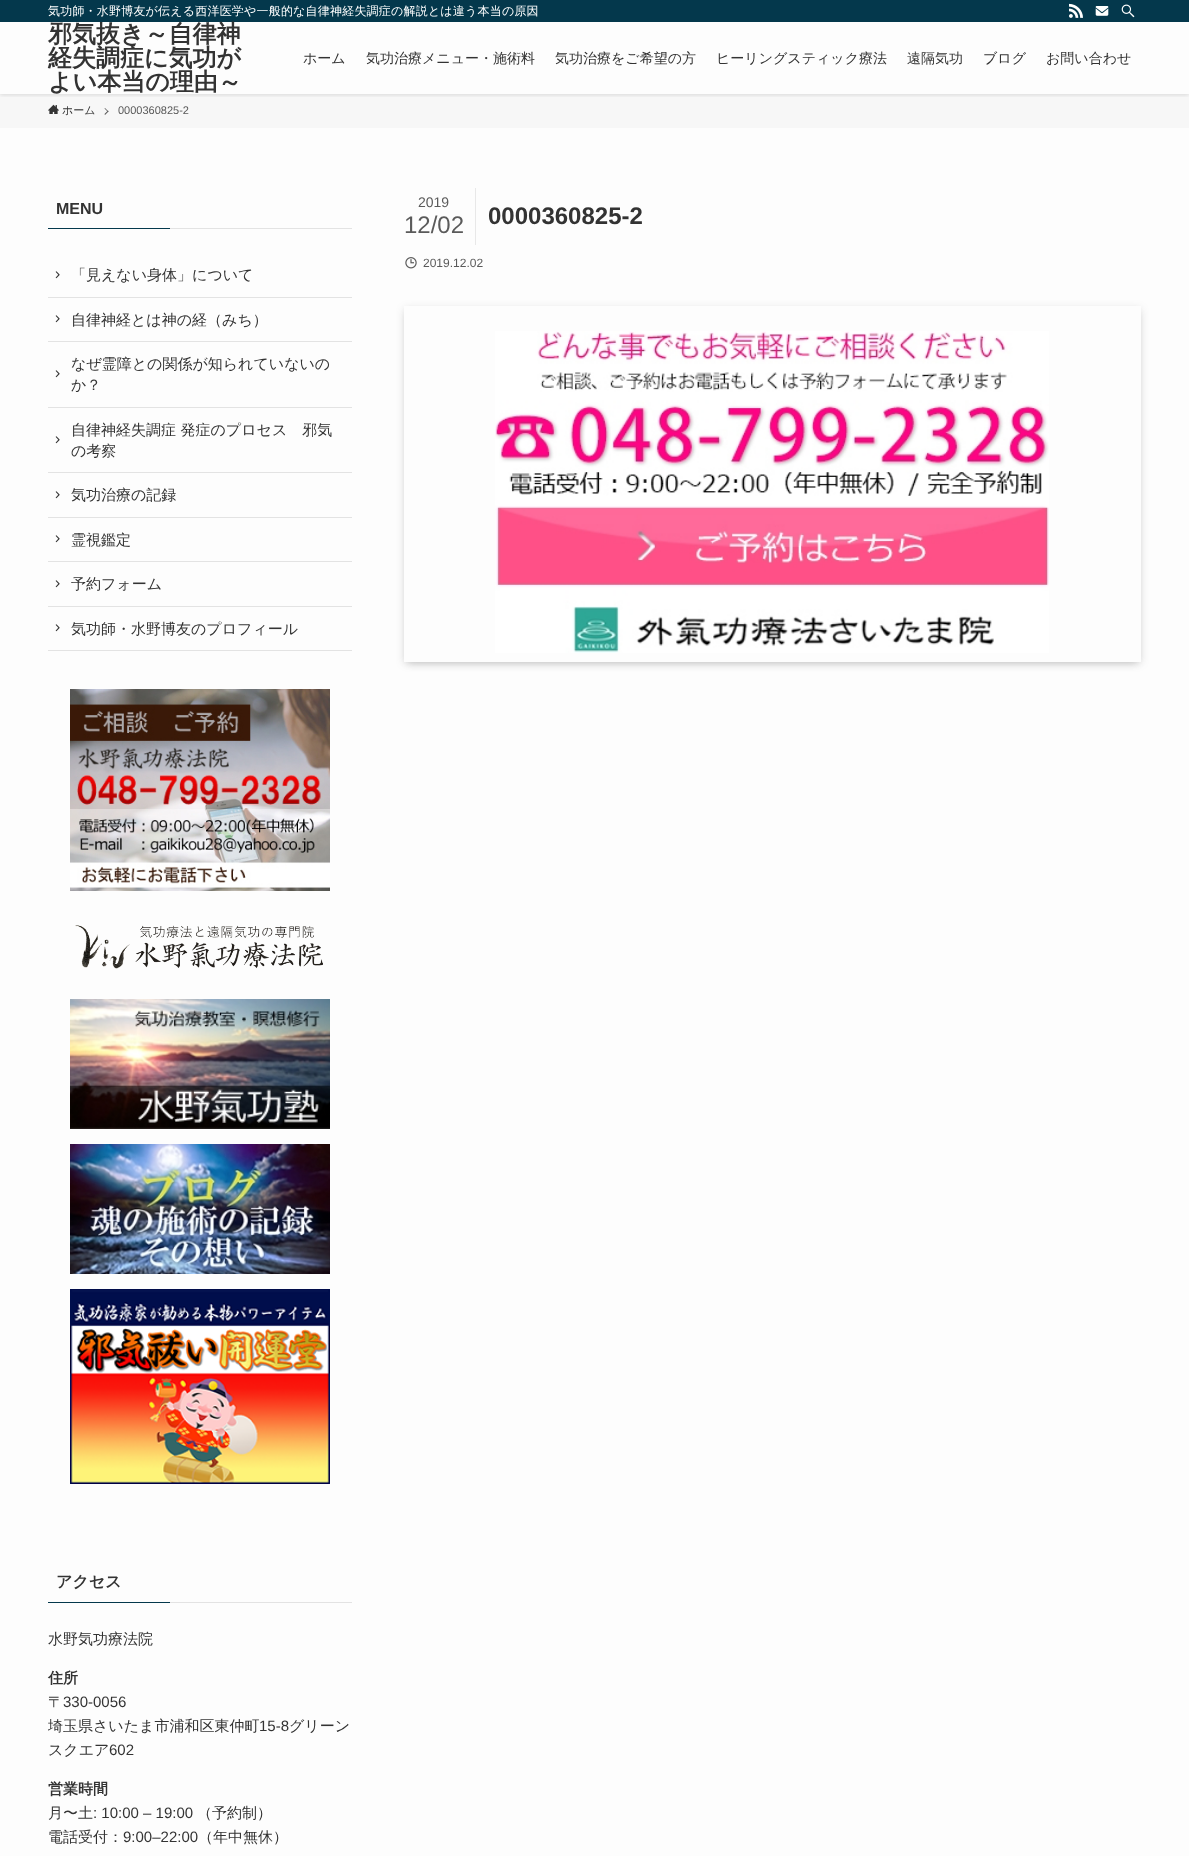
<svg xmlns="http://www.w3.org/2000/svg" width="1189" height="1856">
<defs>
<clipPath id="clip1"><rect x="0" y="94" width="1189" height="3"/></clipPath>
<clipPath id="clip2"><path d="M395 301h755v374h-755zm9 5h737v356h-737z" clip-rule="evenodd"/></clipPath>
<clipPath id="clip3"><path d="M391 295h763v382h-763zm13 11h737v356h-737z" clip-rule="evenodd"/></clipPath>
</defs>
<rect width="100%" height="100%" fill="#fdfdfd"/>
<rect y="94" width="1189" height="34" fill="#f7f7f7"/>
<g clip-path="url(#clip1)">
<rect y="1" width="1189" height="94" fill="#0000001f" filter="blur(2px)"/>
</g>
<rect width="1189" height="22" fill="#04384c"/>
<text x="48" y="15" style="font-family:WenQuanYi Zen Hei;font-size:12px;font-weight:500;letter-spacing:0.2px;fill:#fff">気功師・水野博友が伝える西洋医学や一般的な自律神経失調症の解説とは違う本当の原因</text>
<image x="1069" y="3" width="14" height="15" href="media/1.png"/>
<image x="1095" y="6" width="14" height="10" href="media/2.png"/>
<image x="1121" y="4" width="14" height="14" href="media/3.png"/>
<text x="48" y="42" style="font-family:WenQuanYi Zen Hei;font-size:24px;font-weight:bold;fill:#333">邪気抜き～自律神</text>
<text x="48" y="66" style="font-family:WenQuanYi Zen Hei;font-size:24px;font-weight:bold;fill:#333">経失調症に気功が</text>
<text x="48" y="90" style="font-family:WenQuanYi Zen Hei;font-size:24px;font-weight:bold;fill:#333">よい本当の理由～</text>
<text x="303" y="63" style="font-family:WenQuanYi Zen Hei;font-size:14px;font-weight:500;fill:#333">ホーム</text>
<text x="366" y="63" style="font-family:WenQuanYi Zen Hei;font-size:14px;font-weight:500;fill:#333">気功治療メニュー・施術料</text>
<text x="555" y="63" style="font-family:WenQuanYi Zen Hei;font-size:14px;font-weight:500;fill:#333">気功治療をご希望の方</text>
<text x="716" y="63" style="font-family:WenQuanYi Zen Hei;font-size:14px;font-weight:500;fill:#333">ヒーリングスティック療法</text>
<text x="907" y="63" style="font-family:WenQuanYi Zen Hei;font-size:14px;font-weight:500;fill:#333">遠隔気功</text>
<text x="983" y="63" style="font-family:WenQuanYi Zen Hei;font-size:14px;font-weight:500;fill:#333">ブログ</text>
<text x="1046" y="63" style="font-family:WenQuanYi Zen Hei;font-size:14px;font-weight:500;fill:#333">お問い合わせ</text>
<image x="48" y="104" width="11" height="10" href="media/4.png"/>
<text x="62" y="114" style="font-family:WenQuanYi Zen Hei;font-size:11px;font-weight:500;fill:#333">ホーム</text>
<path d="M105 108l3.5 3.5l-.5 .5l-3.5-3.5z" fill="#5a5a5a"/>
<path d="M108 110.5l.5 1l-3.5 3.5l-.5-1z" fill="#5a5a5a"/>
<text x="118" y="114" style="font-family:Liberation Sans;font-size:11px;fill:#5a5a5a">0000360825-2</text>
<text x="56" y="214" style="font-family:Liberation Sans;font-size:16px;font-weight:bold;fill:#333">MENU</text>
<rect x="48" y="228" width="122" height="1" fill="#04384c"/>
<rect x="170" y="228" width="182" height="1" fill="#e3e3e3"/>
<rect x="48" y="297" width="304" height="1" fill="#e3e3e3"/>
<image x="55" y="271" width="5" height="8" href="media/5.png"/>
<text x="71" y="280" style="font-family:WenQuanYi Zen Hei;font-size:15px;font-weight:500;fill:#333">「見えない身体」について</text>
<rect x="48" y="341" width="304" height="1" fill="#e3e3e3"/>
<image x="55" y="315" width="5" height="8" href="media/5.png"/>
<text x="71" y="325" style="font-family:WenQuanYi Zen Hei;font-size:15px;font-weight:500;fill:#333">自律神経とは神の経（みち）</text>
<rect x="48" y="407" width="304" height="1" fill="#e3e3e3"/>
<text x="71" y="369" style="font-family:WenQuanYi Zen Hei;font-size:15px;font-weight:500;fill:#333">なぜ霊障との関係が知られていないの</text>
<image x="55" y="370" width="5" height="8" href="media/5.png"/>
<text x="71" y="390" style="font-family:WenQuanYi Zen Hei;font-size:15px;font-weight:500;fill:#333">か？</text>
<rect x="48" y="472" width="304" height="1" fill="#e3e3e3"/>
<text x="71" y="435" style="font-family:WenQuanYi Zen Hei;font-size:15px;font-weight:500;fill:#333">自律神経失調症 発症のプロセス　邪気</text>
<image x="55" y="436" width="5" height="8" href="media/5.png"/>
<text x="71" y="456" style="font-family:WenQuanYi Zen Hei;font-size:15px;font-weight:500;fill:#333">の考察</text>
<rect x="48" y="517" width="304" height="1" fill="#e3e3e3"/>
<image x="55" y="491" width="5" height="8" href="media/5.png"/>
<text x="71" y="500" style="font-family:WenQuanYi Zen Hei;font-size:15px;font-weight:500;fill:#333">気功治療の記録</text>
<rect x="48" y="561" width="304" height="1" fill="#e3e3e3"/>
<image x="55" y="535" width="5" height="8" href="media/5.png"/>
<text x="71" y="545" style="font-family:WenQuanYi Zen Hei;font-size:15px;font-weight:500;fill:#333">霊視鑑定</text>
<rect x="48" y="606" width="304" height="1" fill="#e3e3e3"/>
<image x="55" y="580" width="5" height="8" href="media/5.png"/>
<text x="71" y="589" style="font-family:WenQuanYi Zen Hei;font-size:15px;font-weight:500;fill:#333">予約フォーム</text>
<rect x="48" y="650" width="304" height="1" fill="#e3e3e3"/>
<image x="55" y="624" width="5" height="8" href="media/5.png"/>
<text x="71" y="634" style="font-family:WenQuanYi Zen Hei;font-size:15px;font-weight:500;fill:#333">気功師・水野博友のプロフィール</text>
<image x="70" y="689" width="260" height="202" href="media/6.png"/>
<image x="75" y="925" width="248" height="44" href="media/7.png"/>
<image x="70" y="999" width="260" height="130" href="media/8.png"/>
<image x="70" y="1144" width="260" height="130" href="media/9.png"/>
<image x="70" y="1289" width="260" height="195" href="media/10.png"/>
<text x="56" y="1587" style="font-family:WenQuanYi Zen Hei;font-size:16px;font-weight:bold;fill:#333">アクセス</text>
<rect x="48" y="1602" width="122" height="1" fill="#04384c"/>
<rect x="170" y="1602" width="182" height="1" fill="#e3e3e3"/>
<text x="48" y="1644" style="font-family:WenQuanYi Zen Hei;font-size:15px;font-weight:500;fill:#333">水野気功療法院</text>
<text x="48" y="1683" style="font-family:WenQuanYi Zen Hei;font-size:15px;font-weight:bold;fill:#333">住所</text>
<text x="48" y="1707" style="font-family:WenQuanYi Zen Hei;font-size:15px;font-weight:500;fill:#333">〒</text>
<text x="63" y="1707" style="font-family:Liberation Sans;font-size:15px;fill:#333">330-0056</text>
<text x="48" y="1731" style="font-family:WenQuanYi Zen Hei;font-size:15px;font-weight:500;fill:#333">埼玉県さいたま市浦和区東仲町</text>
<text x="259" y="1731" style="font-family:Liberation Sans;font-size:15px;fill:#333">15-8</text>
<text x="289" y="1731" style="font-family:WenQuanYi Zen Hei;font-size:15px;font-weight:500;fill:#333">グリーン</text>
<text x="48" y="1755" style="font-family:WenQuanYi Zen Hei;font-size:15px;font-weight:500;fill:#333">スクエア</text>
<text x="109" y="1755" style="font-family:Liberation Sans;font-size:15px;fill:#333">602</text>
<text x="48" y="1794" style="font-family:WenQuanYi Zen Hei;font-size:15px;font-weight:bold;fill:#333">営業時間</text>
<text x="48" y="1818" style="font-family:WenQuanYi Zen Hei;font-size:15px;font-weight:500;fill:#333">月〜土</text>
<text x="93" y="1818" style="font-family:Liberation Sans;font-size:15px;fill:#333">: 10:00 – 19:00</text>
<text x="197" y="1818" style="font-family:WenQuanYi Zen Hei;font-size:15px;font-weight:500;fill:#333">（予約制）</text>
<text x="48" y="1842" style="font-family:WenQuanYi Zen Hei;font-size:15px;font-weight:500;fill:#333">電話受付：</text>
<text x="123" y="1842" style="font-family:Liberation Sans;font-size:15px;fill:#333">9:00–22:00</text>
<text x="198" y="1842" style="font-family:WenQuanYi Zen Hei;font-size:15px;font-weight:500;fill:#333">（年中無休）</text>
<rect x="475" y="188" width="1" height="57" fill="#e8e8e8"/>
<text x="418" y="207" style="font-family:Liberation Sans;font-size:14px;fill:#5a5a5a">2019</text>
<text x="404" y="233" style="font-family:Liberation Sans;font-size:24px;fill:#5a5a5a">12/02</text>
<text x="488" y="224" style="font-family:Liberation Sans;font-size:24px;font-weight:bold;fill:#333">0000360825-2</text>
<image x="405" y="257" width="12" height="12" href="media/11.png"/>
<text x="423" y="267" style="font-family:Liberation Sans;font-size:12px;fill:#5a5a5a">2019.12.02</text>
<g clip-path="url(#clip2)">
<rect x="408" y="314" width="729" height="348" fill="#00000033" filter="blur(4px)"/>
</g>
<g clip-path="url(#clip3)">
<rect x="404" y="308" width="737" height="356" fill="#0000001a" filter="blur(4px)"/>
</g>
<image x="495" y="331" width="554" height="322" href="media/12.png"/>
</svg>
